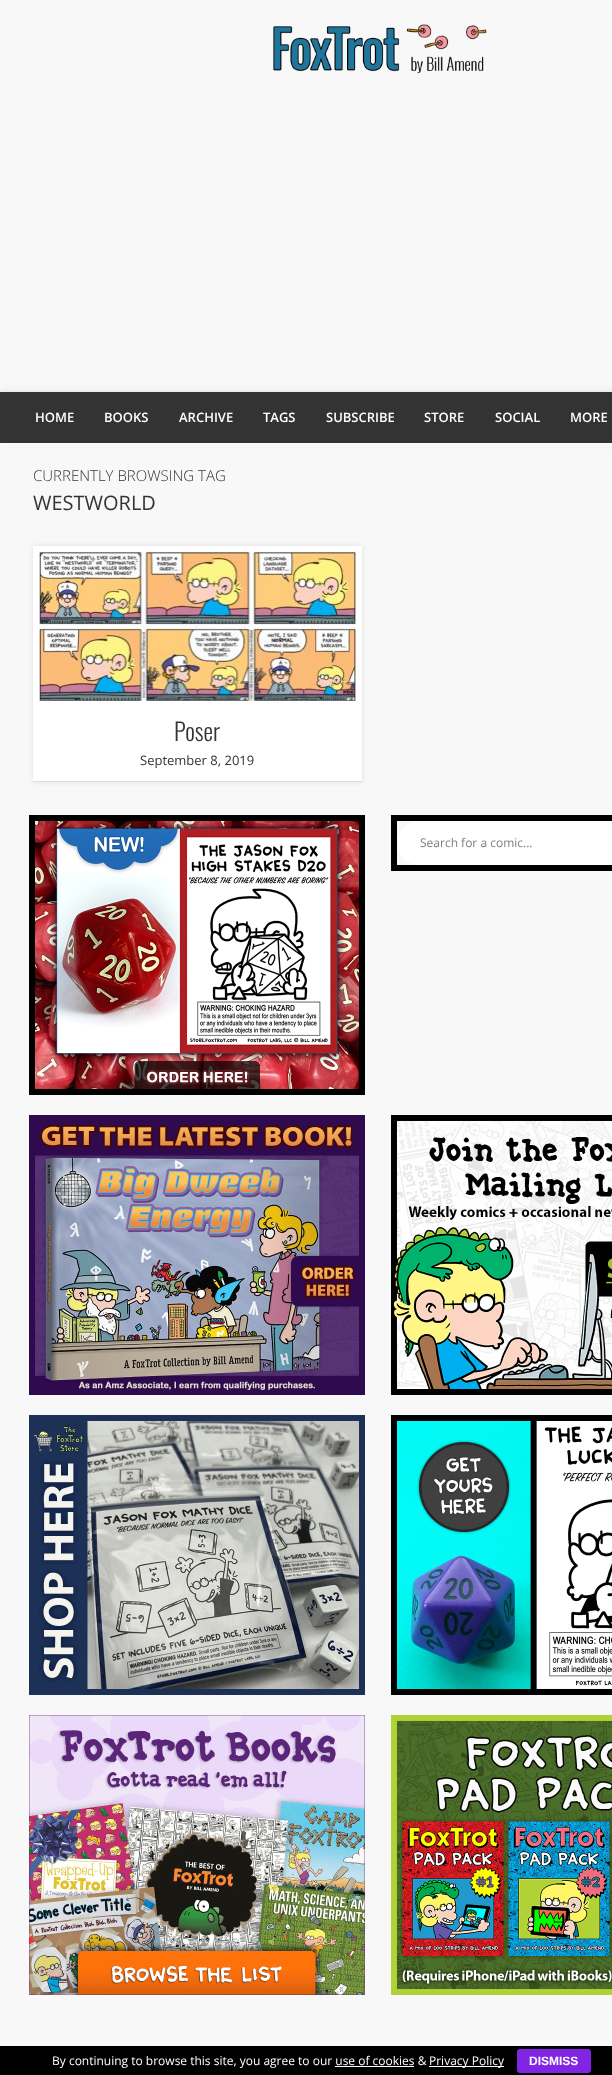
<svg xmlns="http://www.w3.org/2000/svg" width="612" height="2075">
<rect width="100%" height="100%" fill="#f8f8f8"/>
<image x="273" y="24" width="214" height="50" href="media/1.png"/>
<rect y="392" width="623" height="51" fill="#0000001a" filter="blur(3.5px)"/>
<rect y="392" width="612" height="51" fill="#333"/>
<text x="35" y="422" style="font-family:Open Sans;font-size:13px;font-weight:600;fill:#fff">HOME</text>
<text x="104" y="422" style="font-family:Open Sans;font-size:13px;font-weight:600;fill:#fff">BOOKS</text>
<text x="179" y="422" style="font-family:Open Sans;font-size:13px;font-weight:600;fill:#fff">ARCHIVE</text>
<text x="263" y="422" style="font-family:Open Sans;font-size:13px;font-weight:600;fill:#fff">TAGS</text>
<text x="326" y="422" style="font-family:Open Sans;font-size:13px;font-weight:600;fill:#fff">SUBSCRIBE</text>
<text x="424" y="422" style="font-family:Open Sans;font-size:13px;font-weight:600;fill:#fff">STORE</text>
<text x="495" y="422" style="font-family:Open Sans;font-size:13px;font-weight:600;fill:#fff">SOCIAL</text>
<text x="570" y="422" style="font-family:Open Sans;font-size:13px;font-weight:600;fill:#fff">MORE</text>
<rect y="443" width="612" height="4" fill="#f8f8f8"/>
<text x="33" y="481" style="font-family:Open Sans;font-size:15px;font-weight:300;fill:#333">CURRENTLY BROWSING TAG</text>
<text x="33" y="510" style="font-family:Open Sans;font-size:20px;fill:#333">WESTWORLD</text>
<rect x="33" y="546" width="329" height="236" fill="#0000001a" filter="blur(2.5px)"/>
<rect x="33" y="546" width="329" height="235" fill="#fff"/>
<rect x="33" y="781" width="329" height="1" fill="#dedede"/>
<image x="39" y="552" width="317" height="149" href="media/2.png"/>
<text x="174" y="741" style="font-family:Oswald;font-size:24px;font-weight:300;fill:#333">Poser</text>
<text x="140" y="765" style="font-family:Open Sans;font-size:13px;fill:#333">September 8, 2019</text>
<image x="29" y="815" width="336" height="280" href="media/3.png"/>
<rect x="394" y="818" width="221" height="50" fill="none" stroke="#000" stroke-width="6"/>
<rect x="397" y="821" width="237" height="44" rx="22" fill="#fff"/>
<text x="420" y="847" style="font-family:Open Sans;font-size:12px;fill:#7d7d7d">Search for a comic...</text>
<image x="29" y="1115" width="336" height="280" href="media/4.png"/>
<image x="391" y="1115" width="221" height="280" href="media/5.png"/>
<image x="29" y="1415" width="336" height="280" href="media/6.png"/>
<image x="391" y="1415" width="221" height="280" href="media/7.png"/>
<image x="29" y="1715" width="336" height="280" href="media/8.png"/>
<image x="391" y="1715" width="221" height="280" href="media/9.png"/>
<rect y="2046" width="612" height="29" fill="#000"/>
<text x="52" y="2065" style="font-family:Open Sans;font-size:12px;fill:#fff">By continuing to browse this site, you agree to our use of cookies &amp;</text>
<rect x="429" y="2066" width="75" height="1" fill="#fff"/>
<text x="429" y="2065" style="font-family:Open Sans;font-size:12px;fill:#fff">Privacy Policy</text>
<rect x="517" y="2049" width="74" height="24" rx="3" fill="#8224e3"/>
<text x="529" y="2065" style="font-family:Liberation Sans;font-size:12px;font-weight:bold;fill:#fff">DISMISS</text>
<rect x="335" y="2066" width="79" height="1" fill="#fff"/>
</svg>
